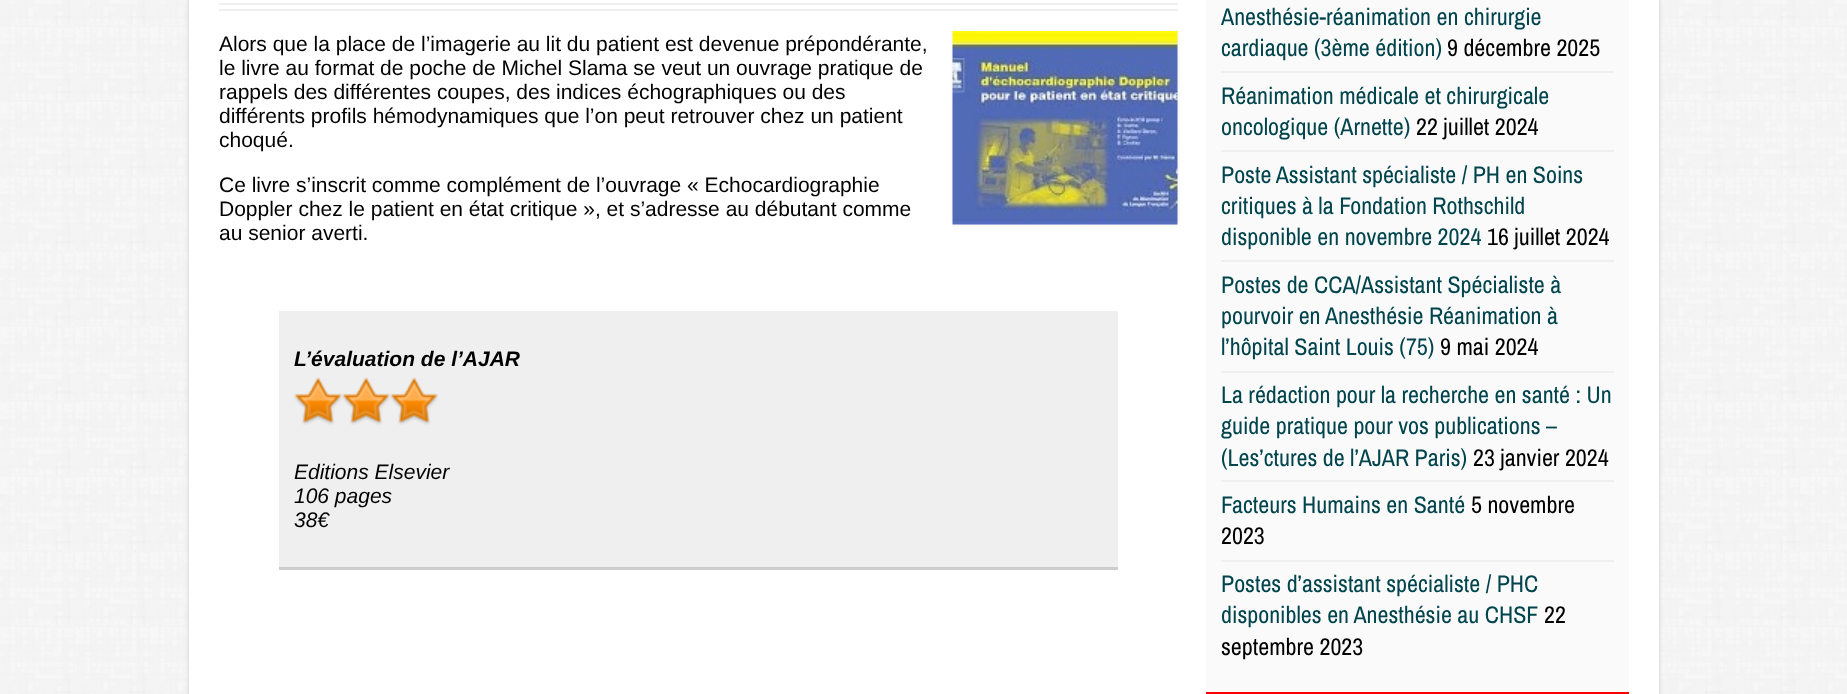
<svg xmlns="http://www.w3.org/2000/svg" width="1847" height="694">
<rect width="100%" height="100%" fill="#fff"/>
<image x="0" y="0" width="1847" height="694" href="media/1.png"/>
<rect x="189" y="-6" width="1470" height="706" fill="#cdcdcd" filter="blur(2px)"/>
<rect x="189" width="1470" height="694" fill="#fff"/>
<rect x="219" y="3" width="959" height="2" fill="#efefef"/>
<rect x="219" y="9" width="959" height="2" fill="#efefef"/>
<text x="219" y="51" style="font-family:Liberation Sans;font-size:21px;fill:#000">Alors que la place de l’imagerie au lit du patient est devenue prépondérante,</text>
<rect x="953" y="32" width="225" height="193" fill="#efefef" filter="blur(2px)"/>
<image x="952" y="31" width="226" height="194" href="media/2.png"/>
<text x="219" y="75" style="font-family:Liberation Sans;font-size:21px;fill:#000">le livre au format de poche de Michel Slama se veut un ouvrage pratique de</text>
<text x="219" y="99" style="font-family:Liberation Sans;font-size:21px;fill:#000">rappels des différentes coupes, des indices échographiques ou des</text>
<text x="219" y="123" style="font-family:Liberation Sans;font-size:21px;fill:#000">différents profils hémodynamiques que l’on peut retrouver chez un patient</text>
<text x="219" y="147" style="font-family:Liberation Sans;font-size:21px;fill:#000">choqué.</text>
<text x="219" y="192" style="font-family:Liberation Sans;font-size:21px;fill:#000">Ce livre s’inscrit comme complément de l’ouvrage « Echocardiographie</text>
<text x="219" y="216" style="font-family:Liberation Sans;font-size:21px;fill:#000">Doppler chez le patient en état critique », et s’adresse au débutant comme</text>
<text x="219" y="240" style="font-family:Liberation Sans;font-size:21px;fill:#000">au senior averti.</text>
<rect x="279" y="311" width="839" height="256" fill="#efefef"/>
<rect x="279" y="567" width="839" height="3" fill="#cdcdcd"/>
<text x="294" y="366" style="font-family:Liberation Sans;font-size:21px;font-weight:bold;font-style:italic;fill:#000">L’évaluation de l’AJAR</text>
<image x="294" y="377" width="48" height="48" href="media/3.png"/>
<image x="342" y="377" width="48" height="48" href="media/3.png"/>
<image x="390" y="377" width="48" height="48" href="media/3.png"/>
<text x="294" y="479" style="font-family:Liberation Sans;font-size:21px;font-style:italic;fill:#000">Editions Elsevier</text>
<text x="294" y="503" style="font-family:Liberation Sans;font-size:21px;font-style:italic;fill:#000">106 pages</text>
<text x="294" y="527" style="font-family:Liberation Sans;font-size:21px;font-style:italic;fill:#000">38€</text>
<rect x="1206" width="423" height="692" fill="#fafafa"/>
<rect x="1206" y="692" width="423" height="2" fill="#fe0000"/>
<text x="1221" y="25" style="font-family:Archivo Narrow;font-size:24px;fill:#00444d">Anesthésie-réanimation en chirurgie</text>
<text x="1221" y="56" style="font-family:Archivo Narrow;font-size:24px;fill:#00444d">cardiaque (3ème édition)</text>
<text x="1447" y="56" style="font-family:Archivo Narrow;font-size:24px;fill:#000">9 décembre 2025</text>
<rect x="1221" y="71" width="393" height="2" fill="#efefef"/>
<text x="1221" y="104" style="font-family:Archivo Narrow;font-size:24px;fill:#00444d">Réanimation médicale et chirurgicale</text>
<text x="1221" y="135" style="font-family:Archivo Narrow;font-size:24px;fill:#00444d">oncologique (Arnette)</text>
<text x="1416" y="135" style="font-family:Archivo Narrow;font-size:24px;fill:#000">22 juillet 2024</text>
<rect x="1221" y="150" width="393" height="2" fill="#efefef"/>
<text x="1221" y="183" style="font-family:Archivo Narrow;font-size:24px;fill:#00444d">Poste Assistant spécialiste / PH en Soins</text>
<text x="1221" y="214" style="font-family:Archivo Narrow;font-size:24px;fill:#00444d">critiques à la Fondation Rothschild</text>
<text x="1221" y="245" style="font-family:Archivo Narrow;font-size:24px;fill:#00444d">disponible en novembre 2024</text>
<text x="1487" y="245" style="font-family:Archivo Narrow;font-size:24px;fill:#000">16 juillet 2024</text>
<rect x="1221" y="260" width="393" height="2" fill="#efefef"/>
<text x="1221" y="293" style="font-family:Archivo Narrow;font-size:24px;fill:#00444d">Postes de CCA/Assistant Spécialiste à</text>
<text x="1221" y="324" style="font-family:Archivo Narrow;font-size:24px;fill:#00444d">pourvoir en Anesthésie Réanimation à</text>
<text x="1221" y="355" style="font-family:Archivo Narrow;font-size:24px;fill:#00444d">l’hôpital Saint Louis (75)</text>
<text x="1440" y="355" style="font-family:Archivo Narrow;font-size:24px;fill:#000">9 mai 2024</text>
<rect x="1221" y="371" width="393" height="2" fill="#efefef"/>
<text x="1221" y="403" style="font-family:Archivo Narrow;font-size:24px;fill:#00444d">La rédaction pour la recherche en santé : Un</text>
<text x="1221" y="434" style="font-family:Archivo Narrow;font-size:24px;fill:#00444d">guide pratique pour vos publications –</text>
<text x="1221" y="466" style="font-family:Archivo Narrow;font-size:24px;fill:#00444d">(Les’ctures de l’AJAR Paris)</text>
<text x="1473" y="466" style="font-family:Archivo Narrow;font-size:24px;fill:#000">23 janvier 2024</text>
<rect x="1221" y="480" width="393" height="2" fill="#efefef"/>
<text x="1221" y="513" style="font-family:Archivo Narrow;font-size:24px;fill:#00444d">Facteurs Humains en Santé</text>
<text x="1471" y="513" style="font-family:Archivo Narrow;font-size:24px;fill:#000">5 novembre</text>
<text x="1221" y="544" style="font-family:Archivo Narrow;font-size:24px;fill:#000">2023</text>
<rect x="1221" y="560" width="393" height="2" fill="#efefef"/>
<text x="1221" y="592" style="font-family:Archivo Narrow;font-size:24px;fill:#00444d">Postes d’assistant spécialiste / PHC</text>
<text x="1221" y="623" style="font-family:Archivo Narrow;font-size:24px;fill:#00444d">disponibles en Anesthésie au CHSF</text>
<text x="1544" y="623" style="font-family:Archivo Narrow;font-size:24px;fill:#000">22</text>
<text x="1221" y="655" style="font-family:Archivo Narrow;font-size:24px;fill:#000">septembre 2023</text>
</svg>
